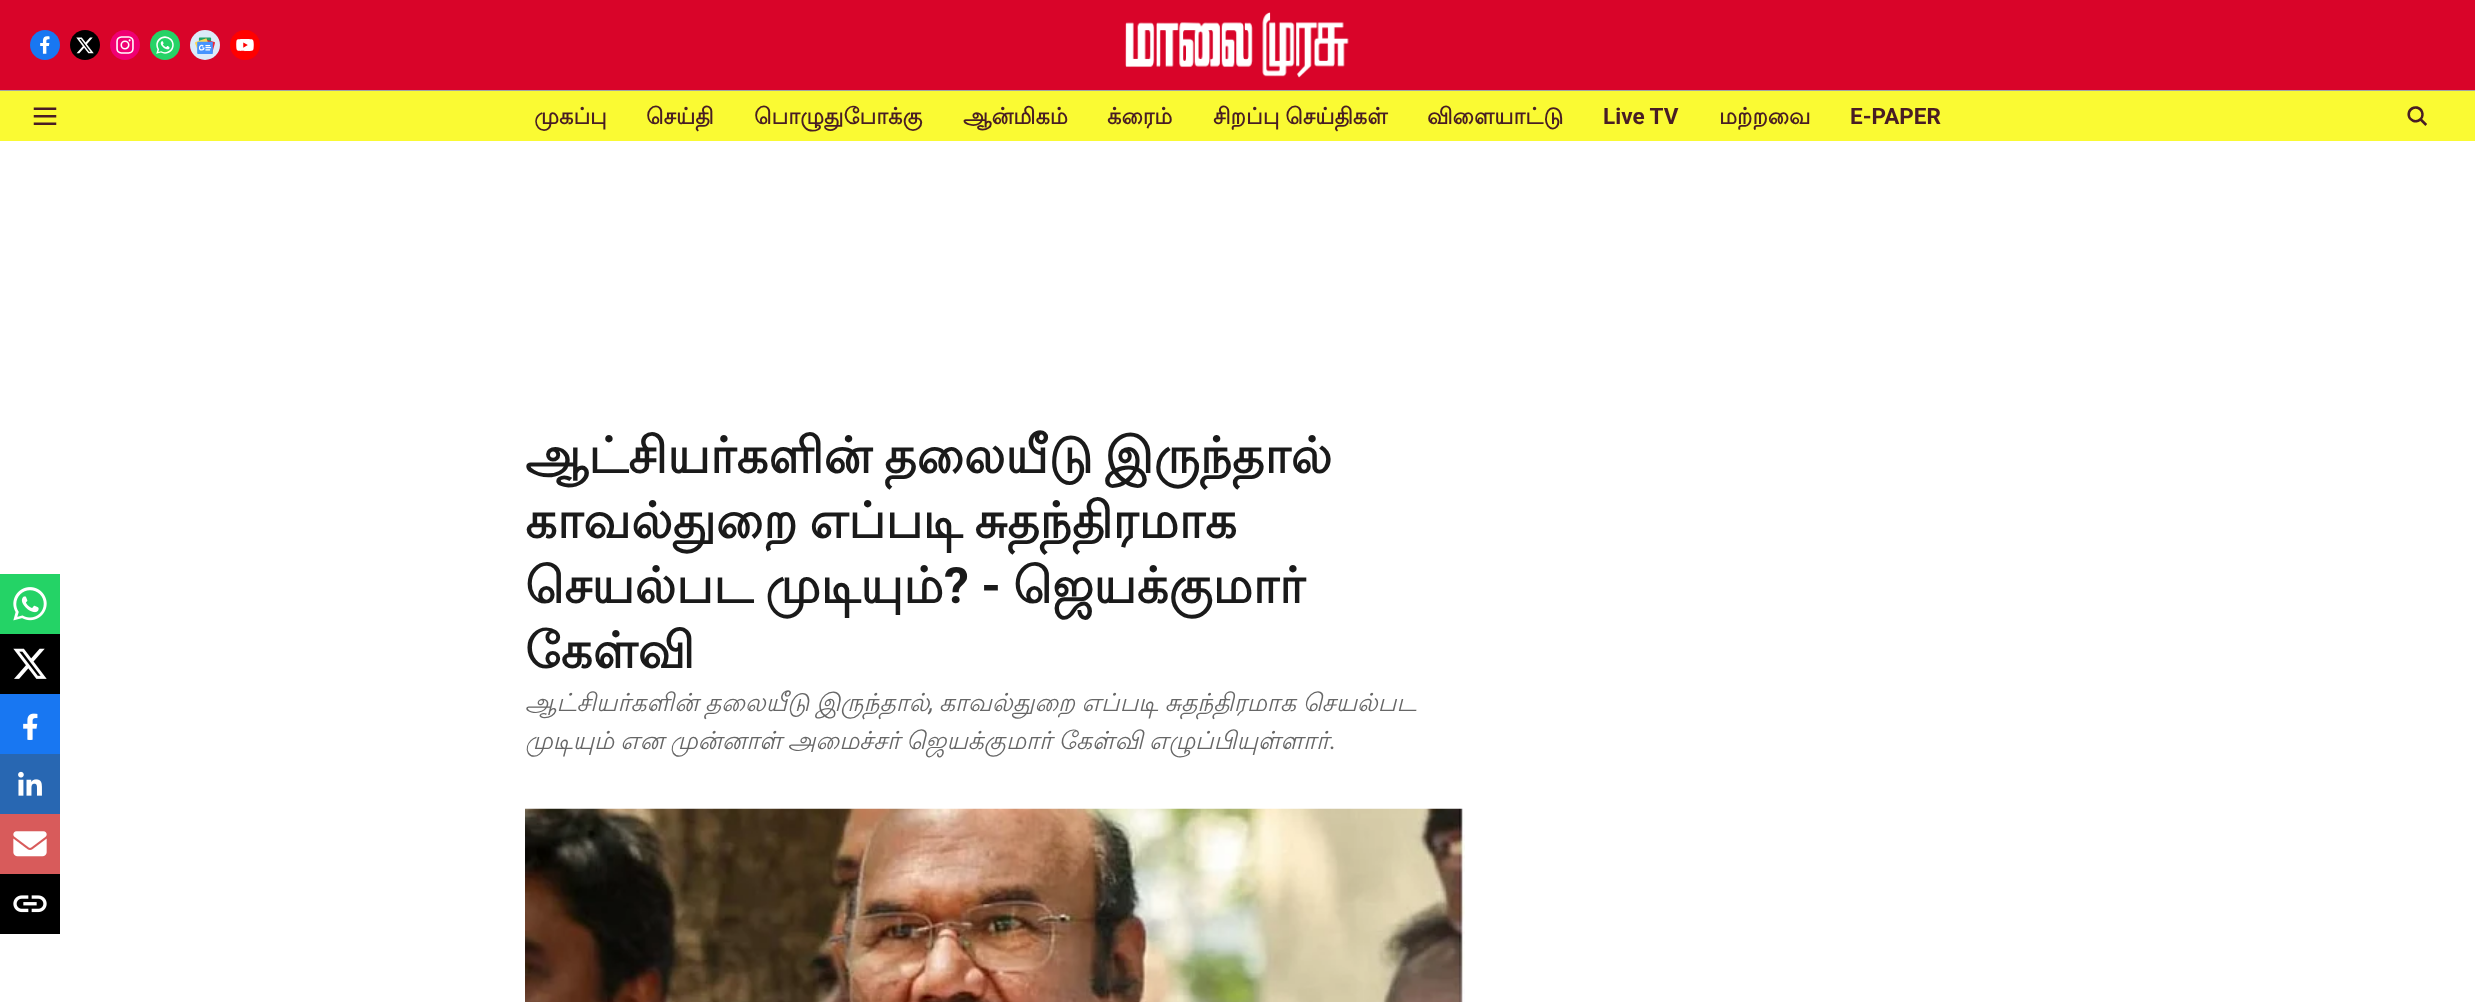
<svg xmlns="http://www.w3.org/2000/svg" width="2475" height="1002">
<rect width="100%" height="100%" fill="#fff"/>
<rect width="2475" height="90" fill="#d90429"/>
<rect y="90" width="2475" height="1" fill="#a4a4a4"/>
<image x="30" y="30" width="30" height="30" href="media/1.png"/>
<image x="70" y="30" width="30" height="30" href="media/2.png"/>
<image x="110" y="30" width="30" height="30" href="media/3.png"/>
<image x="150" y="30" width="30" height="30" href="media/4.png"/>
<image x="190" y="30" width="30" height="30" href="media/5.png"/>
<image x="230" y="30" width="30" height="30" href="media/6.png"/>
<image x="1125" y="12" width="224" height="66" href="media/7.png"/>
<rect y="91" width="2475" height="50" fill="#fafa33"/>
<image x="33" y="107" width="24" height="18" href="media/8.png"/>
<text x="534" y="124" style="font-family:Lohit Tamil;font-size:22.5px;font-weight:bold;fill:#481d24">முகப்பு</text>
<text x="646" y="124" style="font-family:Lohit Tamil;font-size:22.5px;font-weight:bold;fill:#481d24">செய்தி</text>
<text x="754" y="124" style="font-family:Lohit Tamil;font-size:22.5px;font-weight:bold;fill:#481d24">பொழுதுபோக்கு</text>
<text x="963" y="124" style="font-family:Lohit Tamil;font-size:22.5px;font-weight:bold;fill:#481d24">ஆன்மிகம்</text>
<text x="1107" y="124" style="font-family:Lohit Tamil;font-size:22.5px;font-weight:bold;fill:#481d24">க்ரைம்</text>
<text x="1213" y="124" word-spacing="-1" style="font-family:Lohit Tamil;font-size:22.5px;font-weight:bold;fill:#481d24">சிறப்பு செய்திகள்</text>
<text x="1427" y="124" style="font-family:Lohit Tamil;font-size:22.5px;font-weight:bold;fill:#481d24">விளையாட்டு</text>
<text x="1603" y="124" style="font-family:Roboto;font-size:22.5px;font-weight:bold;fill:#481d24">Live TV</text>
<text x="1719" y="124" style="font-family:Lohit Tamil;font-size:22.5px;font-weight:bold;fill:#481d24">மற்றவை</text>
<text x="1850" y="124" style="font-family:Roboto;font-size:22.5px;font-weight:bold;fill:#481d24">E-PAPER</text>
<image x="2407" y="106" width="20" height="20" href="media/9.png"/>
<rect y="574" width="60" height="60" fill="#24d366"/>
<image x="13" y="587" width="34" height="34" href="media/10.png"/>
<rect y="634" width="60" height="60" fill="#000"/>
<image x="13" y="648" width="34" height="31" href="media/11.png"/>
<rect y="694" width="60" height="60" fill="#1877f2"/>
<image x="23" y="713" width="15" height="27" href="media/12.png"/>
<rect y="754" width="60" height="60" fill="#2867b2"/>
<image x="18" y="771" width="24" height="25" href="media/13.png"/>
<rect y="814" width="60" height="60" fill="#d85b5b"/>
<image x="13" y="831" width="34" height="26" href="media/14.png"/>
<rect y="874" width="60" height="60" fill="#000"/>
<image x="13" y="895" width="34" height="18" href="media/15.png"/>
<text x="525" y="473" word-spacing="-3" style="font-family:Lohit Tamil;font-size:50px;font-weight:bold;fill:#1a1a1a">ஆட்சியர்களின் தலையீடு இருந்தால்</text>
<text x="525" y="538" word-spacing="-3" style="font-family:Lohit Tamil;font-size:50px;font-weight:bold;fill:#1a1a1a">காவல்துறை எப்படி சுதந்திரமாக</text>
<text x="525" y="603" style="font-family:Lohit Tamil;font-size:50px;font-weight:bold;fill:#1a1a1a">செயல்பட</text>
<text x="765" y="603" style="font-family:Lohit Tamil;font-size:50px;font-weight:bold;fill:#1a1a1a">முடியும்</text>
<text x="944" y="603" style="font-family:Roboto;font-size:50px;font-weight:bold;fill:#1a1a1a">? -</text>
<text x="1013" y="603" style="font-family:Lohit Tamil;font-size:50px;font-weight:bold;fill:#1a1a1a">ஜெயக்குமார்</text>
<text x="525" y="668" style="font-family:Lohit Tamil;font-size:50px;font-weight:bold;fill:#1a1a1a">கேள்வி</text>
<text x="525" y="711" word-spacing="-1" style="font-family:Lohit Tamil;font-size:25px;font-style:italic;fill:#666">ஆட்சியர்களின் தலையீடு இருந்தால்</text>
<text x="939" y="711" word-spacing="-1" style="font-family:Lohit Tamil;font-size:25px;font-style:italic;fill:#666">காவல்துறை எப்படி சுதந்திரமாக செயல்பட</text>
<text x="929" y="711" style="font-family:Roboto;font-size:25px;font-style:italic;fill:#666">,</text>
<text x="525" y="749" word-spacing="-1.5" style="font-family:Lohit Tamil;font-size:25px;font-style:italic;fill:#666">முடியும் என முன்னாள் அமைச்சர் ஜெயக்குமார் கேள்வி எழுப்பியுள்ளார்</text>
<text x="1330" y="749" style="font-family:Roboto;font-size:25px;font-style:italic;fill:#666">.</text>
<image x="525" y="808" width="940" height="194" href="media/16.png"/>
</svg>
